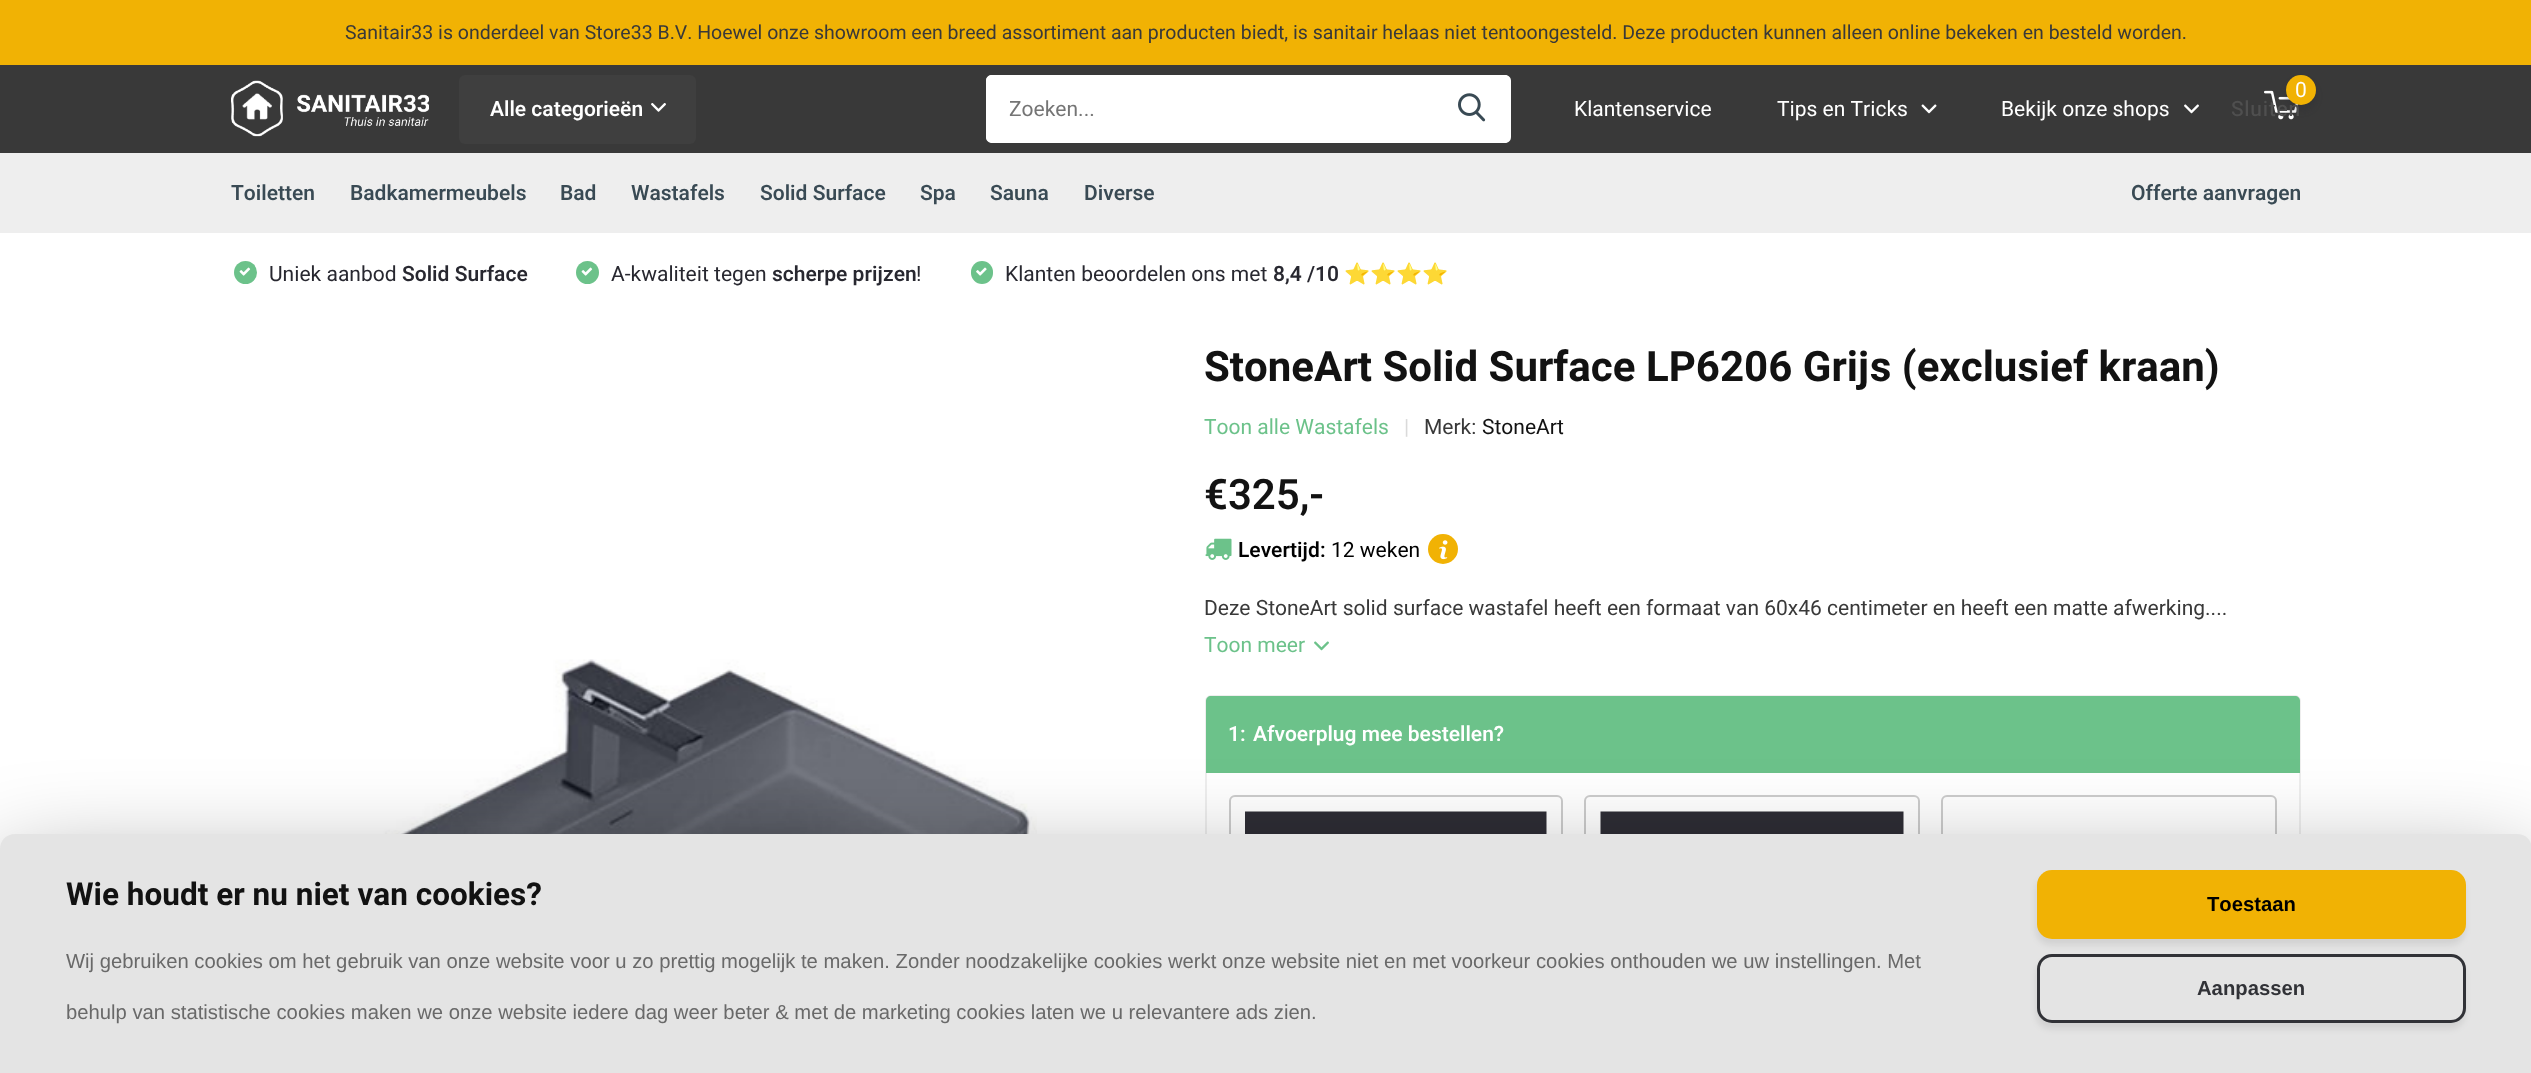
<svg xmlns="http://www.w3.org/2000/svg" width="2531" height="1073">
<style>*{font-kerning:none!important;font-variant-ligatures:none!important}</style>
<rect width="100%" height="100%" fill="#fff"/>
<rect width="2531" height="65" fill="#f1b204"/>
<text x="345" y="39" style="font-family:Heebo;font-size:19.5px;fill:#393939">Sanitair33 is onderdeel van Store33 B.V. Hoewel onze showroom een breed assortiment aan producten biedt, is sanitair helaas niet tentoongesteld. Deze producten kunnen alleen online bekeken en besteld worden.</text>
<rect y="65" width="2531" height="88" fill="#393939"/>
<image x="231" y="80" width="198" height="57" href="media/1.png"/>
<rect x="459" y="75" width="237" height="69" rx="6" fill="#3f3f3f"/>
<text x="490" y="116" style="font-family:Heebo;font-size:21px;font-weight:600;fill:#fff">Alle categorieën</text>
<image x="651" y="103" width="15" height="9" href="media/2.png"/>
<image x="2264" y="90" width="35" height="30" href="media/3.png"/>
<rect x="2286" y="81" width="30" height="30" rx="15" fill="#28283040" filter="blur(3px)"/>
<circle cx="2301" cy="90" r="15" fill="#f1b204"/>
<text x="2295" y="97" style="font-family:Heebo;font-size:21px;fill:#fff">0</text>
<path d="M992 75h444v68h-444c-3.5 0-6-2.5-6-6v-56c0-3.5 2.5-6 6-6z" fill="#fff"/>
<path d="M992 75h444v67h-444c-4 0-6-2-6-6v-55c0-3 2-6 6-6zm0 1h444v65h-444c-3 0-5-2-5-5v-55c0-2 2-5 5-5z" fill="#fff" fill-rule="evenodd"/>
<text x="1009" y="116" style="font-family:Heebo;font-size:21px;fill:#757575">Zoeken...</text>
<path d="M1436 75h69c3.5 0 6 2.5 6 6v56c0 3.5-2.5 6-6 6h-69z" fill="#fff"/>
<path d="M1436 75h68c4 0 6 3 6 6v55c0 4-2 6-6 6h-68zm0 1h68c3 0 5 3 5 5v55c0 3-2 5-5 5h-68z" fill="#fff" fill-rule="evenodd"/>
<image x="1458" y="93" width="28" height="29" href="media/4.png"/>
<text x="1574" y="116" style="font-family:Heebo;font-size:21px;fill:#fff">Klantenservice</text>
<text x="1777" y="116" style="font-family:Heebo;font-size:21px;fill:#fff">Tips en Tricks</text>
<image x="1921" y="104" width="16" height="10" href="media/5.png"/>
<text x="2001" y="116" style="font-family:Heebo;font-size:21px;fill:#fff">Bekijk onze shops</text>
<image x="2184" y="104" width="15" height="10" href="media/6.png"/>
<text x="2231" y="116" style="font-family:Heebo;font-size:21px;font-weight:500;letter-spacing:0.75px;fill:#4f4f4f">Sluiten</text>
<rect y="153" width="2531" height="80" fill="#eee"/>
<text x="231" y="200" style="font-family:Heebo;font-size:21px;font-weight:600;fill:#394a54">Toiletten</text>
<text x="350" y="200" style="font-family:Heebo;font-size:21px;font-weight:600;fill:#394a54">Badkamermeubels</text>
<text x="560" y="200" style="font-family:Heebo;font-size:21px;font-weight:600;fill:#394a54">Bad</text>
<text x="631" y="200" style="font-family:Heebo;font-size:21px;font-weight:600;fill:#394a54">Wastafels</text>
<text x="760" y="200" style="font-family:Heebo;font-size:21px;font-weight:600;fill:#394a54">Solid Surface</text>
<text x="920" y="200" style="font-family:Heebo;font-size:21px;font-weight:600;fill:#394a54">Spa</text>
<text x="990" y="200" style="font-family:Heebo;font-size:21px;font-weight:600;fill:#394a54">Sauna</text>
<text x="1084" y="200" style="font-family:Heebo;font-size:21px;font-weight:600;fill:#394a54">Diverse</text>
<text x="2131" y="200" style="font-family:Heebo;font-size:21px;font-weight:600;fill:#394a54">Offerte aanvragen</text>
<circle cx="245.5" cy="272.5" r="11.5" fill="#6cc28a"/>
<image x="239" y="267" width="12" height="9" href="media/7.png"/>
<text x="269" y="281" style="font-family:Heebo;font-size:21px;fill:#282830">Uniek aanbod</text>
<text x="402" y="281" style="font-family:Heebo;font-size:21px;font-weight:600;fill:#282830">Solid Surface</text>
<circle cx="587.5" cy="272.5" r="11.5" fill="#6cc28a"/>
<image x="581" y="267" width="12" height="9" href="media/7.png"/>
<text x="611" y="281" style="font-family:Heebo;font-size:21px;fill:#282830">A-kwaliteit tegen</text>
<text x="772" y="281" style="font-family:Heebo;font-size:21px;font-weight:600;fill:#282830">scherpe prijzen</text>
<text x="916" y="281" style="font-family:Heebo;font-size:21px;fill:#282830">!</text>
<rect x="971" y="261" width="22" height="23" rx="11" fill="#6cc28a"/>
<image x="976" y="267" width="11" height="9" href="media/8.png"/>
<text x="1005" y="281" style="font-family:Heebo;font-size:21px;fill:#282830">Klanten beoordelen ons met</text>
<text x="1273" y="281" style="font-family:Heebo;font-size:21px;font-weight:600;fill:#282830">8,4 /10</text>
<text x="1344" y="281" style="font-family:Noto Color Emoji;font-size:21px;font-weight:bold;fill:#282830">⭐⭐⭐⭐</text>
<image x="332" y="659" width="705" height="175" href="media/9.png"/>
<text x="1204" y="381" style="font-family:Heebo;font-size:42px;font-weight:bold;fill:#121212">StoneArt Solid Surface LP6206 Grijs (exclusief kraan)</text>
<text x="1204" y="434" style="font-family:Heebo;font-size:21px;fill:#6cc28a">Toon alle Wastafels</text>
<text x="1404" y="434" style="font-family:Heebo;font-size:21px;fill:#dadada">|</text>
<text x="1424" y="434" style="font-family:Heebo;font-size:21px;fill:#393939">Merk:</text>
<text x="1482" y="434" style="font-family:Heebo;font-size:21px;fill:#121212">StoneArt</text>
<text x="1204" y="509" style="font-family:Heebo;font-size:42px;font-weight:600;fill:#121212">€325,-</text>
<image x="1205" y="538" width="27" height="22" href="media/10.png"/>
<text x="1238" y="557" style="font-family:Heebo;font-size:21px;font-weight:600;fill:#000">Levertijd:</text>
<text x="1331" y="557" style="font-family:Heebo;font-size:21px;fill:#000">12 weken</text>
<circle cx="1443" cy="549" r="15" fill="#f1b204"/>
<image x="1439" y="540" width="9" height="20" href="media/11.png"/>
<text x="1204" y="615" style="font-family:Heebo;font-size:21px;fill:#393939">Deze StoneArt solid surface wastafel heeft een formaat van 60x46 centimeter en heeft een matte afwerking....</text>
<text x="1204" y="652" style="font-family:Heebo;font-size:21px;fill:#6cc28a">Toon meer</text>
<image x="1314" y="641" width="15" height="10" href="media/12.png"/>
<rect x="1206" y="696" width="1094" height="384" rx="5" fill="none" stroke="#eee" stroke-width="2"/>
<path d="M1211 696h1084c3 0 5 2 5 5v72h-1094v-72c0-3 2-5 5-5z" fill="#6cc28a"/>
<text x="1228" y="741" style="font-family:Heebo;font-size:21px;font-weight:600;fill:#fff">1:</text>
<text x="1253" y="741" style="font-family:Heebo;font-size:21px;font-weight:600;fill:#fff">Afvoerplug mee bestellen?</text>
<rect x="1230" y="796" width="332" height="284" rx="5" fill="none" stroke="#ccc" stroke-width="2"/>
<image x="1245" y="811" width="302" height="23" href="media/13.png"/>
<rect x="1585" y="796" width="334" height="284" rx="5" fill="none" stroke="#ccc" stroke-width="2"/>
<image x="1600" y="811" width="304" height="23" href="media/14.png"/>
<rect x="1942" y="796" width="334" height="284" rx="5" fill="none" stroke="#ccc" stroke-width="2"/>
<rect y="879" width="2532" height="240" rx="15" fill="#00000080" filter="blur(52.5px)"/>
<path d="M15 834h2502c8.5 0 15 6.5 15 15v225h-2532v-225c0-8.5 6.5-15 15-15z" fill="#e4e4e4"/>
<text x="66" y="905" style="font-family:Heebo;font-size:31.5px;font-weight:bold;fill:#121212">Wie houdt er nu niet van cookies?</text>
<text x="66" y="968" style="font-family:Liberation Sans;font-size:20.25px;fill:#696969">Wij gebruiken cookies om het gebruik van onze website voor u zo prettig mogelijk te maken. Zonder noodzakelijke cookies werkt onze website niet en met voorkeur cookies onthouden we uw instellingen. Met</text>
<text x="66" y="1019" style="font-family:Liberation Sans;font-size:20.25px;fill:#696969">behulp van statistische cookies maken we onze website iedere dag weer beter &amp; met de marketing cookies laten we u relevantere ads zien.</text>
<rect x="2036" y="876" width="429" height="69" rx="15" fill="#00000014" filter="blur(3px)"/>
<rect x="2037" y="870" width="429" height="69" rx="15" fill="#f1b204"/>
<text x="2207" y="911" style="font-family:Liberation Sans;font-size:20.25px;font-weight:bold;fill:#000">Toestaan</text>
<rect x="2036" y="960" width="429" height="69" rx="15" fill="#00000014" filter="blur(3px)"/>
<rect x="2038.5" y="955.5" width="426" height="66" rx="13.5" fill="#e4e4e4" stroke="#313237" stroke-width="3"/>
<text x="2197" y="995" style="font-family:Liberation Sans;font-size:20.25px;font-weight:bold;fill:#313237">Aanpassen</text>
</svg>
